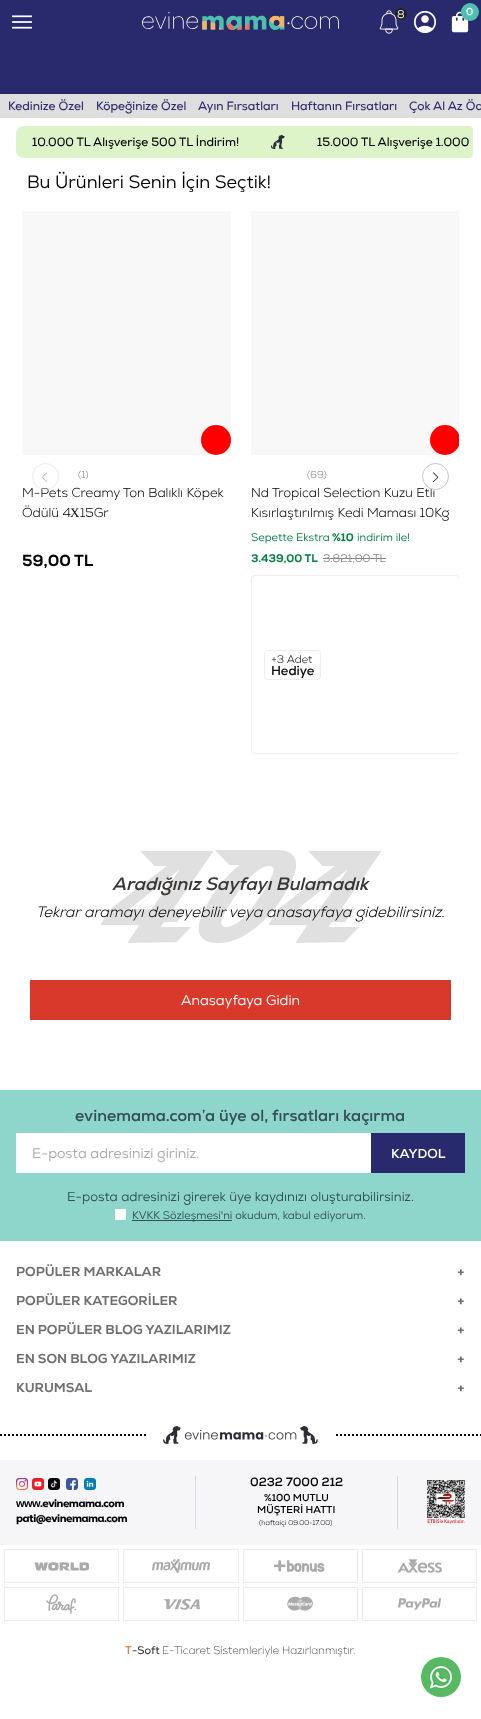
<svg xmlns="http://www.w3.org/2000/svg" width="481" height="1719">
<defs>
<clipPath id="clip1"><rect x="22" y="206" width="437" height="607"/></clipPath>
</defs>
<rect width="100%" height="100%" fill="#fff"/>
<rect width="481" height="94" fill="#29296d"/>
<image x="12" y="15" width="20" height="14" href="media/1.png"/>
<image x="142" y="12" width="197" height="18" href="media/2.png"/>
<image x="379" y="10" width="20" height="24" href="media/3.png"/>
<circle cx="401" cy="14" r="6" fill="#222"/>
<text x="397" y="18" style="font-family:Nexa;font-size:11px;fill:#fff">8</text>
<image x="413" y="10" width="24" height="24" href="media/4.png"/>
<image x="451" y="11" width="18" height="22" href="media/5.png"/>
<circle cx="470" cy="12" r="9" fill="#4ec0ae"/>
<text x="466" y="15" style="font-family:Nexa;font-size:10px;font-weight:bold;fill:#fff">0</text>
<rect y="94" width="481" height="24" fill="#dedede"/>
<text x="8" y="110" style="font-family:'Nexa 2';font-size:12px;fill:#29296d">Kedinize Özel</text>
<text x="96" y="110" style="font-family:'Nexa 2';font-size:12px;fill:#29296d">Köpeğinize Özel</text>
<text x="198" y="110" style="font-family:'Nexa 2';font-size:12px;fill:#29296d">Ayın Fırsatları</text>
<text x="291" y="110" style="font-family:'Nexa 2';font-size:12px;fill:#29296d">Haftanın Fırsatları</text>
<text x="409" y="110" style="font-family:'Nexa 2';font-size:12px;fill:#29296d">Çok Al Az Öd</text>
<path d="M24 126h445c2 0 4 2 4 4v24c0 2-2 4-4 4h-445c-4.5 0-8-3.5-8-8v-16c0-4.5 3.5-8 8-8z" fill="#ddf4c8"/>
<text x="32" y="146" style="font-family:'Nexa 2';font-size:12px;fill:#000">10.000 TL Alışverişe 500 TL İndirim!</text>
<image x="271" y="135" width="14" height="14" href="media/6.png"/>
<text x="317" y="146" style="font-family:'Nexa 2';font-size:12px;fill:#000">15.000 TL Alışverişe 1.000</text>
<text x="27" y="188" style="font-family:Nexa;font-size:18px;fill:#000">Bu Ürünleri Senin İçin Seçtik!</text>
<text x="22" y="497" style="font-family:Nexa;font-size:13px;font-weight:300;fill:#000">M-Pets Creamy Ton Balıklı Köpek</text>
<circle cx="45.5" cy="476.5" r="13.5" fill="#ffffff59"/>
<circle cx="45.5" cy="476.5" r="13" fill="none" stroke="#c5c5c559"/>
<image x="42" y="472" width="5" height="10" href="media/7.png"/>
<text x="251" y="497" style="font-family:Nexa;font-size:13px;font-weight:300;fill:#000">Nd Tropical Selection Kuzu Etli</text>
<circle cx="435.5" cy="476.5" r="13" fill="#fff" stroke="#c5c5c5"/>
<image x="433" y="472" width="6" height="11" href="media/8.png"/>
<rect x="22" y="211" width="209" height="244" fill="#f8f8f8"/>
<circle cx="216" cy="440" r="15" fill="#f00"/>
<text x="78" y="478" style="font-family:Nexa;font-size:10px;font-weight:300;fill:#888">(1)</text>
<text x="22" y="517" style="font-family:Nexa;font-size:13px;font-weight:300;fill:#000">Ödülü 4</text>
<text x="70" y="517" style="font-family:Liberation Serif;font-size:13px;fill:#000">X</text>
<text x="80" y="517" style="font-family:Nexa;font-size:13px;font-weight:300;fill:#000">15Gr</text>
<text x="22" y="566" style="font-family:Nexa;font-size:16px;font-weight:800;fill:#000">59,00</text>
<text x="74" y="566" style="font-family:Nexa;font-size:16px;font-weight:800;fill:#000">TL</text>
<rect x="251" y="211" width="208" height="244" fill="#f8f8f8"/>
<g clip-path="url(#clip1)">
<circle cx="445" cy="440" r="15" fill="#f00"/>
</g>
<text x="307" y="478" style="font-family:Nexa;font-size:10px;font-weight:300;fill:#888">(69)</text>
<text x="251" y="517" style="font-family:Nexa;font-size:13px;font-weight:300;fill:#000">Kısırlaştırılmış Kedi Maması 10Kg</text>
<text x="251" y="541" style="font-family:Nexa;font-size:11px;fill:#008040">Sepette Ekstra</text>
<text x="332" y="541" style="font-family:Nexa;font-size:11px;font-weight:800;fill:#008040">%10</text>
<text x="357" y="541" style="font-family:Nexa;font-size:11px;fill:#008040">indirim ile!</text>
<text x="251" y="562" style="font-family:Nexa;font-size:11px;font-weight:800;fill:#008040">3.439,00 TL</text>
<text x="323" y="562" style="font-family:Nexa;font-size:11px;fill:#888">3.821,00</text>
<rect x="323" y="558" width="50" height="1" fill="#888"/>
<text x="373" y="562" style="font-family:Nexa;font-size:11px;fill:#888">TL</text>
<rect x="373" y="558" width="13" height="1" fill="#888"/>
<g clip-path="url(#clip1)">
<rect x="251.5" y="575.5" width="208" height="178" rx="3.5" fill="none" stroke="#eee"/>
</g>
<rect x="264.5" y="650.5" width="56" height="29" rx="3.5" fill="none" stroke="#eee"/>
<text x="271" y="663" style="font-family:Nexa;font-size:11px;font-weight:300;fill:#111">+3 Adet</text>
<text x="271" y="675" style="font-family:Nexa;font-size:13px;font-weight:bold;fill:#111">Hediye</text>
<image x="100" y="850" width="282" height="93" href="media/9.png"/>
<text x="112" y="890" style="font-family:Nexa;font-size:18px;font-weight:bold;font-style:italic;fill:#3b3734">Aradığınız Sayfayı Bulamadık</text>
<text x="36" y="917" style="font-family:Nexa;font-size:15px;font-weight:300;font-style:italic;fill:#000">Tekrar aramayı deneyebilir veya anasayfaya gidebilirsiniz.</text>
<rect x="30" y="980" width="421" height="40" fill="#d9392b"/>
<text x="181" y="1005" style="font-family:Nexa;font-size:14px;fill:#fff">Anasayfaya Gidin</text>
<rect y="1090" width="481" height="151" fill="#8ed6cb"/>
<text x="75" y="1121" style="font-family:Nexa;font-size:16px;font-weight:bold;fill:#354e57">evinemama.com’a üye ol, fırsatları kaçırma</text>
<rect x="16" y="1133" width="355" height="40" fill="#fff"/>
<text x="32" y="1158" style="font-family:Nexa;font-size:14px;fill:#aaa">E-posta adresinizi giriniz.</text>
<rect x="371" y="1133" width="94" height="40" fill="#29296d"/>
<text x="391" y="1158" style="font-family:Nexa;font-size:13px;font-weight:bold;fill:#fff">KAYDOL</text>
<text x="67" y="1201" style="font-family:Nexa;font-size:13px;fill:#354e57">E-posta adresinizi girerek üye kaydınızı oluşturabilirsiniz.</text>
<rect x="115" y="1209" width="11" height="11" fill="#fff"/>
<rect x="132" y="1220" width="100" height="1" fill="#354e57"/>
<text x="132" y="1219" style="font-family:Nexa;font-size:11px;fill:#354e57">KVKK Sözleşmesi'ni okudum, kabul ediyorum.</text>
<text x="16" y="1276" style="font-family:Nexa;font-size:13px;font-weight:800;fill:#707070">POPÜLER MARKALAR</text>
<text x="457" y="1277" style="font-family:Nexa;font-size:14px;font-weight:800;fill:#707070">+</text>
<text x="16" y="1305" style="font-family:Nexa;font-size:13px;font-weight:800;fill:#707070">POPÜLER KATEGORİLER</text>
<text x="457" y="1306" style="font-family:Nexa;font-size:14px;font-weight:800;fill:#707070">+</text>
<text x="16" y="1334" style="font-family:Nexa;font-size:13px;font-weight:800;fill:#707070">EN POPÜLER BLOG YAZILARIMIZ</text>
<text x="457" y="1335" style="font-family:Nexa;font-size:14px;font-weight:800;fill:#707070">+</text>
<text x="16" y="1363" style="font-family:Nexa;font-size:13px;font-weight:800;fill:#707070">EN SON BLOG YAZILARIMIZ</text>
<text x="457" y="1364" style="font-family:Nexa;font-size:14px;font-weight:800;fill:#707070">+</text>
<text x="16" y="1392" style="font-family:Nexa;font-size:13px;font-weight:800;fill:#707070">KURUMSAL</text>
<text x="457" y="1393" style="font-family:Nexa;font-size:14px;font-weight:800;fill:#707070">+</text>
<path d="M0 1435h481" fill="none" stroke="#000" stroke-width="2" stroke-dasharray="2 2"/>
<rect x="148" y="1434" width="186" height="2" fill="#fff"/>
<image x="163" y="1426" width="155" height="18" href="media/10.png"/>
<rect y="1460" width="481" height="85" fill="#f6f6f9"/>
<rect x="195" y="1476" width="1" height="53" fill="#d9d9e5"/>
<image x="16" y="1478" width="12" height="12" href="media/11.png"/>
<image x="32" y="1478" width="12" height="12" href="media/12.png"/>
<image x="48" y="1478" width="12" height="12" href="media/13.png"/>
<image x="66" y="1478" width="12" height="12" href="media/14.png"/>
<image x="84" y="1478" width="12" height="12" href="media/15.png"/>
<text x="16" y="1507" style="font-family:Liberation Sans;font-size:11px;font-weight:bold;letter-spacing:-0.5px;fill:#000">www</text>
<text x="40" y="1507" style="font-family:Nexa;font-size:11px;font-weight:900;letter-spacing:-0.5px;fill:#000">.evinemama.com</text>
<text x="16" y="1522" style="font-family:Nexa;font-size:11px;font-weight:900;letter-spacing:-0.5px;fill:#000">pati@evinemama.com</text>
<rect x="397" y="1476" width="1" height="53" fill="#d9d9e5"/>
<text x="250" y="1486" style="font-family:Nexa;font-size:12px;font-weight:bold;fill:#000">0232 7000 212</text>
<text x="264" y="1501" style="font-family:Nexa;font-size:10px;font-weight:bold;fill:#000">%100 MUTLU</text>
<text x="257" y="1513" style="font-family:Nexa;font-size:10px;font-weight:bold;fill:#000">MÜŞTERİ HATTI</text>
<text x="259" y="1525" style="font-family:Nexa;font-size:7px;font-weight:300;fill:#000">(haftaiçi 09.00-17.00)</text>
<image x="427" y="1480" width="38" height="44" href="media/16.png"/>
<rect x="4.5" y="1549.5" width="114" height="33" fill="none" stroke="#ebecec"/>
<image x="34" y="1562" width="55" height="9" href="media/17.png"/>
<rect x="123.5" y="1549.5" width="115" height="33" fill="none" stroke="#ebecec"/>
<image x="152" y="1558" width="58" height="16" href="media/18.png"/>
<rect x="243.5" y="1549.5" width="114" height="33" fill="none" stroke="#ebecec"/>
<image x="274" y="1560" width="51" height="12" href="media/19.png"/>
<rect x="362.5" y="1549.5" width="114" height="33" fill="none" stroke="#ebecec"/>
<image x="397" y="1559" width="45" height="14" href="media/20.png"/>
<rect x="4.5" y="1587.5" width="114" height="33" fill="none" stroke="#ebecec"/>
<image x="46" y="1594" width="30" height="20" href="media/21.png"/>
<rect x="123.5" y="1587.5" width="115" height="33" fill="none" stroke="#ebecec"/>
<image x="163" y="1598" width="37" height="12" href="media/22.png"/>
<rect x="243.5" y="1587.5" width="114" height="33" fill="none" stroke="#ebecec"/>
<image x="287" y="1596" width="26" height="15" href="media/23.png"/>
<rect x="362.5" y="1587.5" width="114" height="33" fill="none" stroke="#ebecec"/>
<image x="398" y="1598" width="43" height="12" href="media/24.png"/>
<text x="125" y="1654" style="font-family:'Nexa 2';font-size:11px;fill:#ec6408">T</text>
<text x="132" y="1654" style="font-family:'Nexa 2';font-size:11px;fill:#3b3734">-Soft</text>
<text x="162" y="1654" style="font-family:Nexa;font-size:11px;font-weight:200;fill:#3b3734">E-Ticaret Sistemleriyle Hazırlanmıştır.</text>
<image x="421" y="1657" width="40" height="40" href="media/25.png"/>
</svg>
